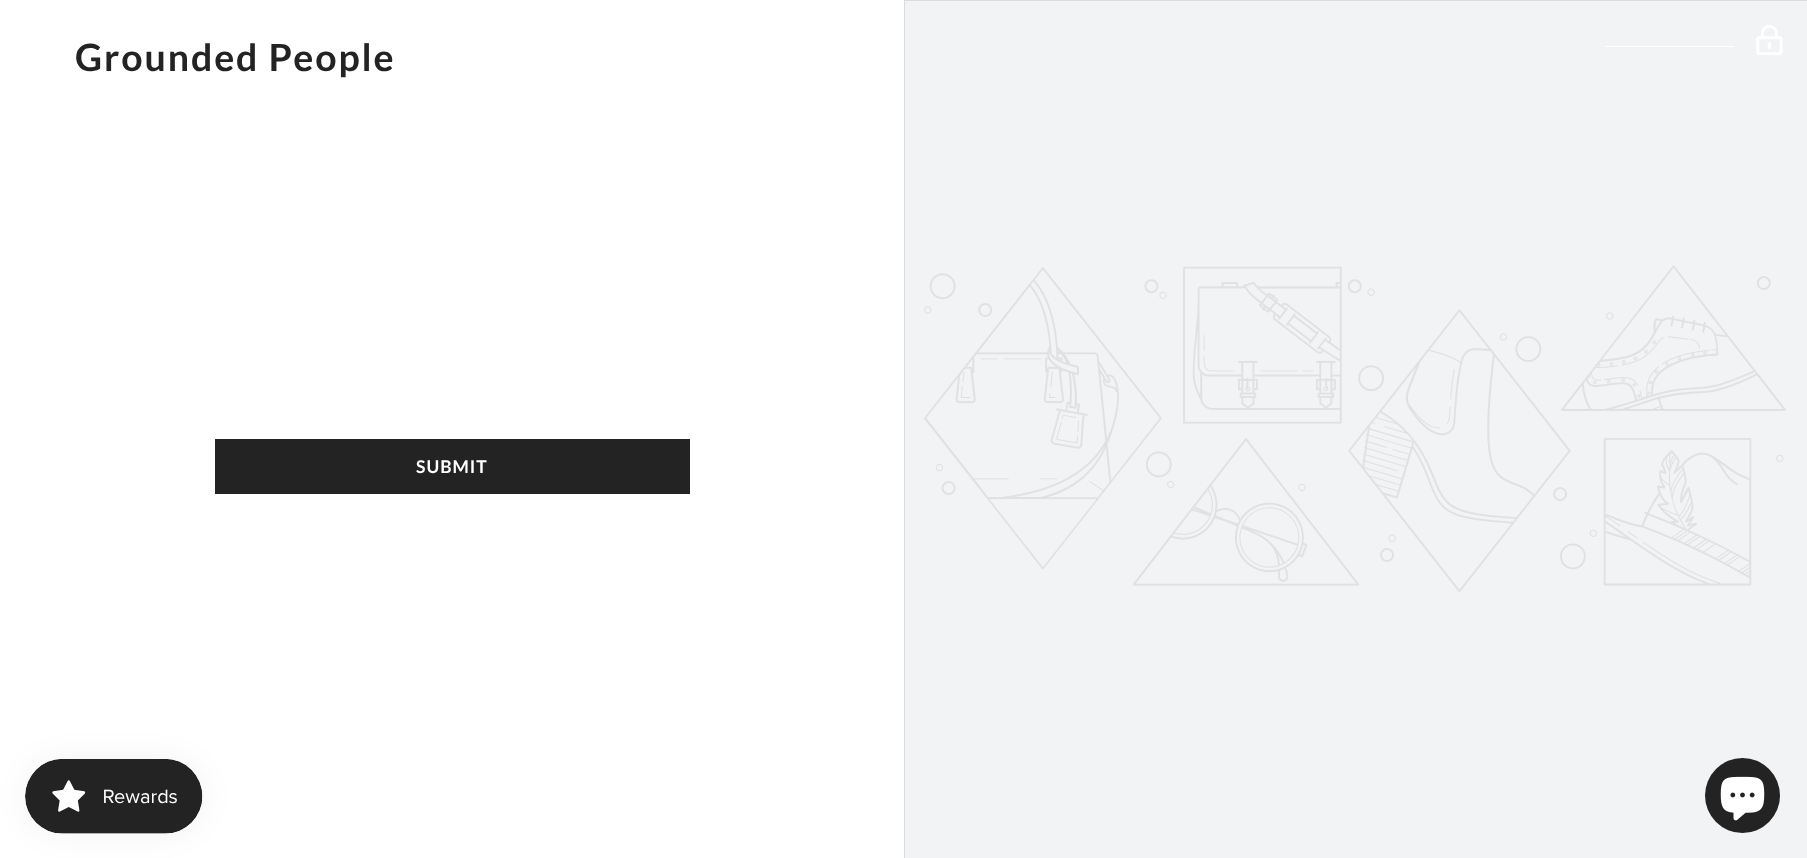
<svg xmlns="http://www.w3.org/2000/svg" width="1807" height="858">
<rect width="100%" height="100%" fill="#fff"/>
<text x="75" y="71" style="font-family:Lato;font-size:37.5px;font-weight:bold;letter-spacing:1.9px;fill:#232323">Grounded People</text>
<rect x="215" y="439" width="475" height="55" fill="#232323"/>
<text x="416" y="473" style="font-family:Lato;font-size:17.5px;font-weight:bold;letter-spacing:1px;fill:#fff">SUBMIT</text>
<rect x="904.5" y="0.5" width="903" height="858" fill="#f2f3f4" stroke="#dadcde"/>
<image x="924" y="265" width="862" height="327" href="media/1.png"/>
<rect x="1605" y="46" width="129" height="1" fill="#fff"/>
<image x="1756" y="25" width="27" height="30" href="media/2.png"/>
<rect x="25" y="759" width="178" height="75" rx="37.5" fill="#0000000d" filter="blur(15.5px)"/>
<image x="25" y="759" width="178" height="75" href="media/3.png"/>
<circle cx="1742.5" cy="795.5" r="37.5" fill="#232323"/>
<image x="1720" y="776" width="45" height="45" href="media/4.png"/>
</svg>
